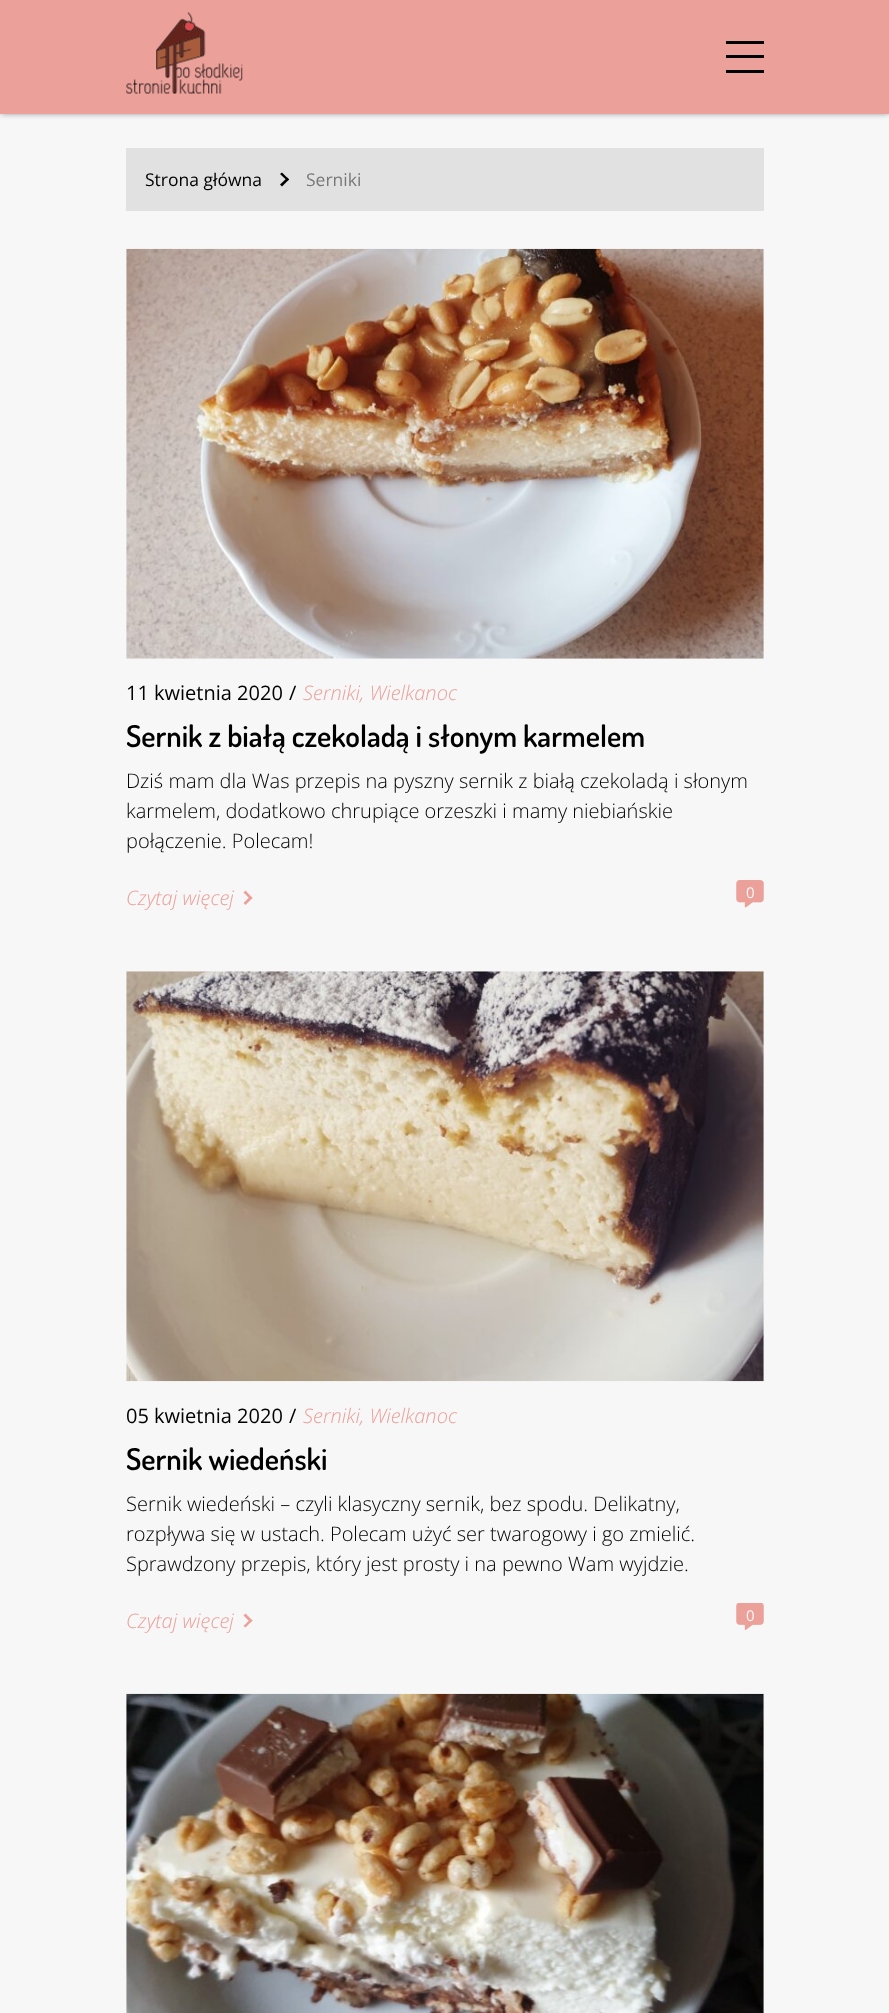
<svg xmlns="http://www.w3.org/2000/svg" width="889" height="2013">
<defs>
<clipPath id="clip1"><path d="M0 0h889v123h-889zm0 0h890v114h-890z" clip-rule="evenodd"/></clipPath>
</defs>
<rect width="100%" height="100%" fill="#f7f7f7"/>
<rect width="889" height="114" fill="#eba09a"/>
<g clip-path="url(#clip1)">
<rect x="1" y="1" width="888" height="112" fill="#00000080" filter="blur(3px)"/>
</g>
<image x="126" y="12" width="117" height="82" href="media/1.png"/>
<rect x="726" y="41" width="38" height="3" fill="#000"/>
<rect x="726" y="55" width="38" height="3" fill="#000"/>
<rect x="726" y="70" width="38" height="3" fill="#000"/>
<rect x="126" y="148" width="638" height="63" fill="#e1e1e1"/>
<text x="145" y="186" style="font-family:Open Sans;font-size:17.5px;fill:#000">Strona główna</text>
<path d="M280 174l2-1.5l7 7l-1.5 1.5z" fill="#000"/>
<path d="M280 184.5l7.5-7l1.5 2l-7 7z" fill="#000"/>
<text x="306" y="186" style="font-family:Open Sans;font-size:17.5px;fill:#787878">Serniki</text>
<image x="126" y="248" width="638" height="411" href="media/2.png"/>
<text x="126" y="700" style="font-family:Open Sans;font-size:20px;fill:#000">11 kwietnia 2020</text>
<text x="289" y="700" style="font-family:Open Sans;font-size:20px;fill:#000">/</text>
<text x="303" y="700" style="font-family:Open Sans;font-size:20px;font-weight:300;font-style:italic;fill:#eba09a">Serniki, Wielkanoc</text>
<text x="126" y="747" style="font-family:Dosis;font-size:30px;font-weight:600;fill:#000">Sernik z białą czekoladą i słonym karmelem</text>
<text x="126" y="788" style="font-family:Open Sans;font-size:20px;font-weight:300;fill:#000">Dziś mam dla Was przepis na pyszny sernik z białą czekoladą i słonym</text>
<text x="126" y="818" style="font-family:Open Sans;font-size:20px;font-weight:300;fill:#000">karmelem, dodatkowo chrupiące orzeszki i mamy niebiańskie</text>
<text x="126" y="848" style="font-family:Open Sans;font-size:20px;font-weight:300;fill:#000">połączenie. Polecam!</text>
<text x="126" y="905" style="font-family:Open Sans;font-size:20px;font-weight:300;font-style:italic;fill:#eba09a">Czytaj więcej</text>
<path d="M243.5 892.5l2-2l7 7.5l-2 1.5z" fill="#eba09a"/>
<path d="M243.5 903l7-7l2 2l-7 7z" fill="#eba09a"/>
<image x="736" y="880" width="28" height="28" href="media/3.png"/>
<text x="746" y="898" style="font-family:Open Sans;font-size:15px;fill:#f7f7f7">0</text>
<image x="126" y="971" width="638" height="411" href="media/4.png"/>
<text x="126" y="1423" style="font-family:Open Sans;font-size:20px;fill:#000">05 kwietnia 2020</text>
<text x="289" y="1423" style="font-family:Open Sans;font-size:20px;fill:#000">/</text>
<text x="303" y="1423" style="font-family:Open Sans;font-size:20px;font-weight:300;font-style:italic;fill:#eba09a">Serniki, Wielkanoc</text>
<text x="126" y="1470" style="font-family:Dosis;font-size:30px;font-weight:600;fill:#000">Sernik wiedeński</text>
<text x="126" y="1511" style="font-family:Open Sans;font-size:20px;font-weight:300;fill:#000">Sernik wiedeński – czyli klasyczny sernik, bez spodu. Delikatny,</text>
<text x="126" y="1541" style="font-family:Open Sans;font-size:20px;font-weight:300;fill:#000">rozpływa się w ustach. Polecam użyć ser twarogowy i go zmielić.</text>
<text x="126" y="1571" style="font-family:Open Sans;font-size:20px;font-weight:300;fill:#000">Sprawdzony przepis, który jest prosty i na pewno Wam wyjdzie.</text>
<text x="126" y="1628" style="font-family:Open Sans;font-size:20px;font-weight:300;font-style:italic;fill:#eba09a">Czytaj więcej</text>
<path d="M243.5 1615.5l2-2l7 7l-2 2z" fill="#eba09a"/>
<path d="M243.5 1626l7-7l2 1.5l-7 7z" fill="#eba09a"/>
<image x="736" y="1603" width="28" height="27" href="media/5.png"/>
<text x="746" y="1621" style="font-family:Open Sans;font-size:15px;fill:#f7f7f7">0</text>
<image x="126" y="1693" width="638" height="320" href="media/6.png"/>
</svg>
